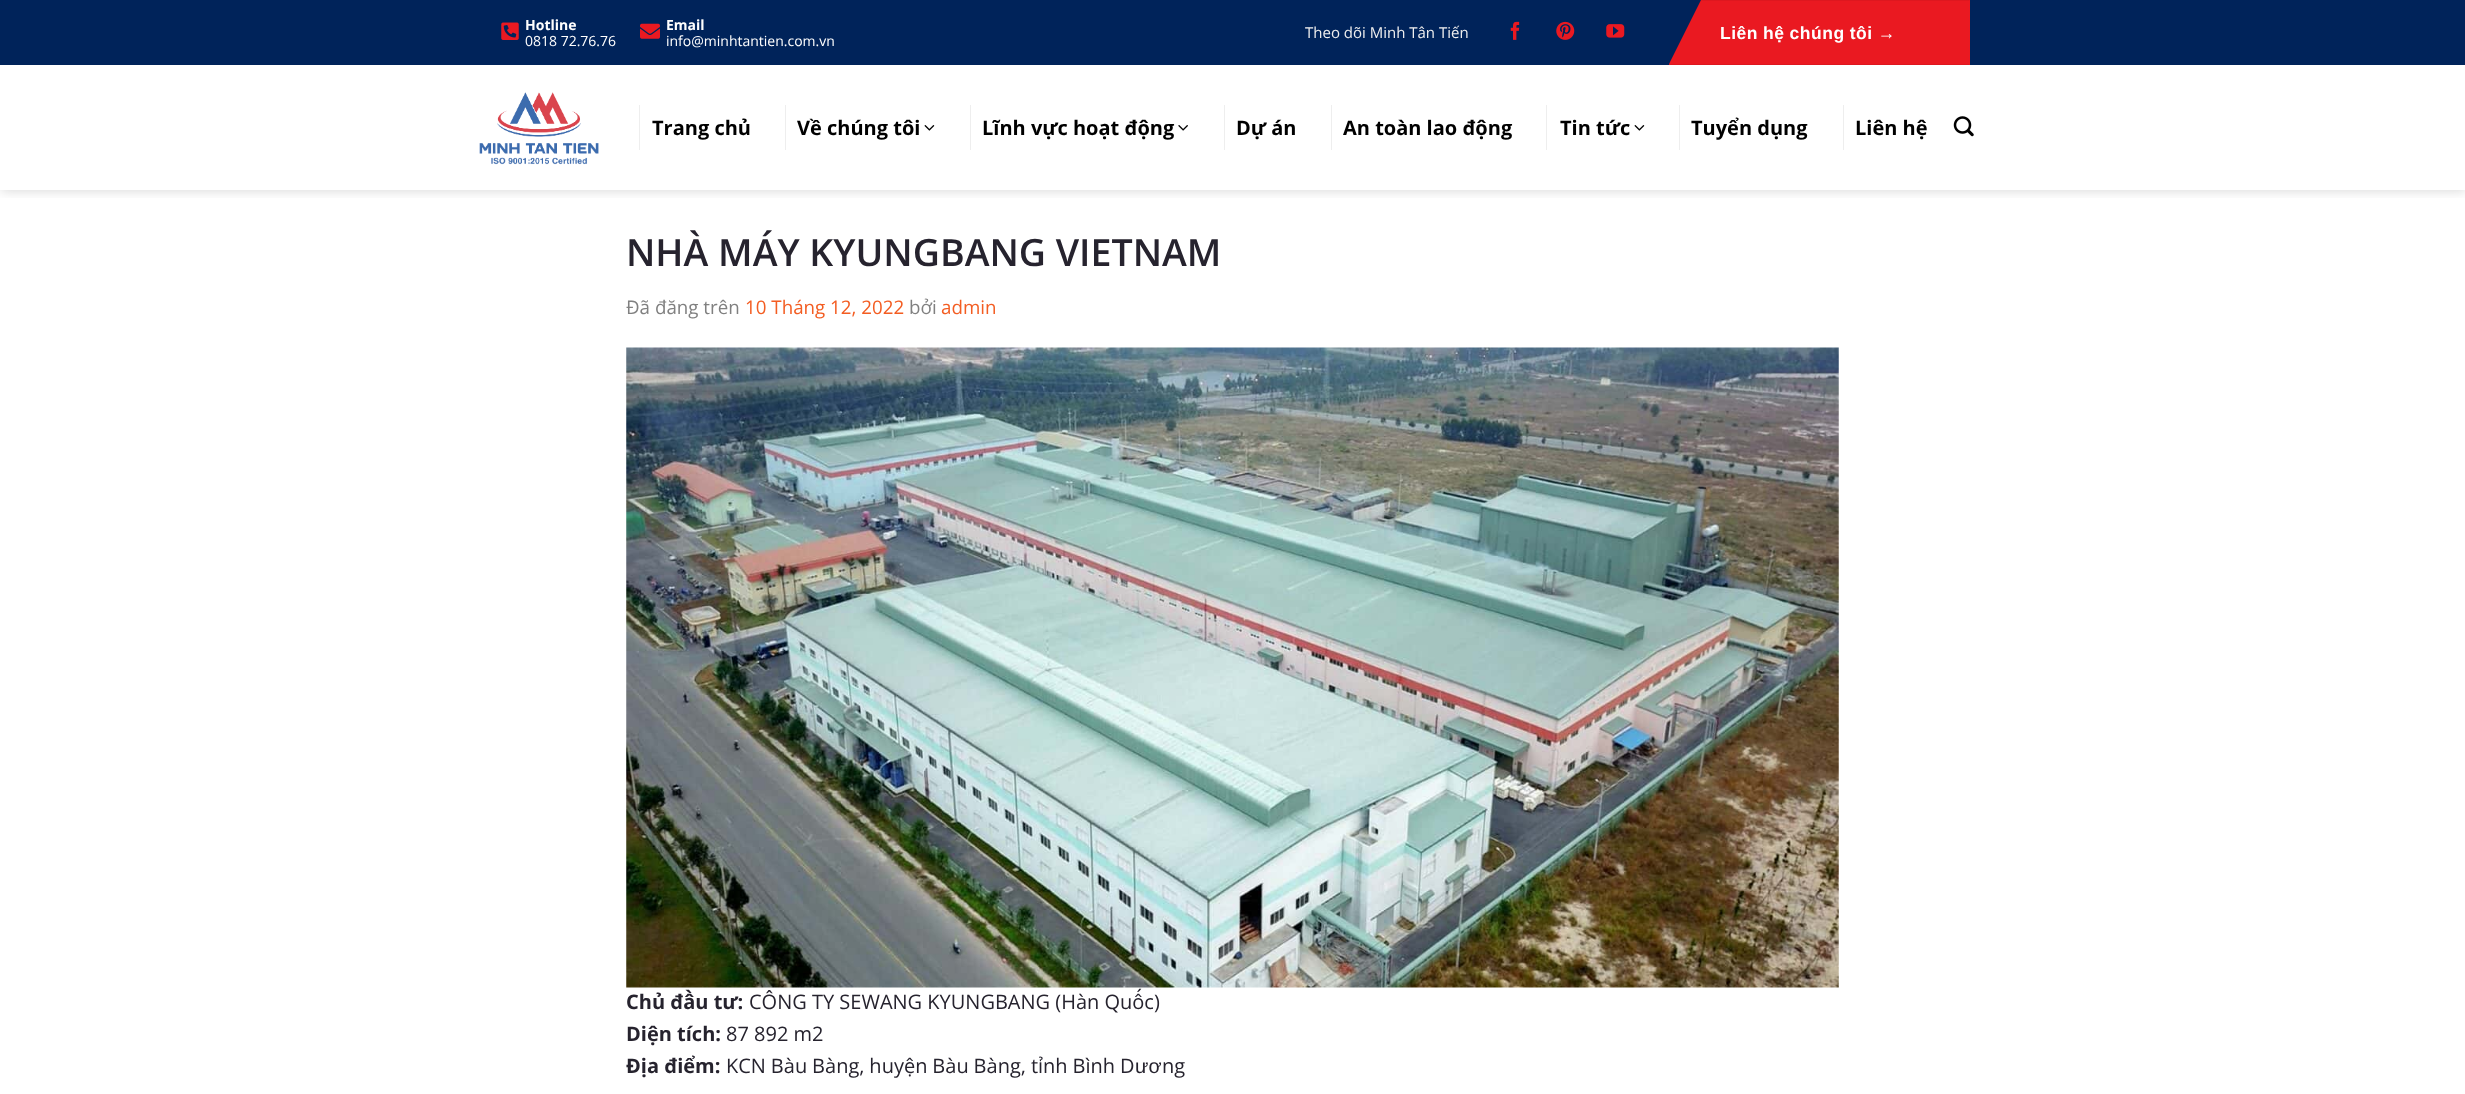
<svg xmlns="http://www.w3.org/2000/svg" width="2465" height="1094">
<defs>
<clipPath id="clip1"><rect x="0" y="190" width="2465" height="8"/></clipPath>
</defs>
<rect width="100%" height="100%" fill="#fff"/>
<g clip-path="url(#clip1)">
<rect x="1" y="1" width="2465" height="190" fill="#00000026" filter="blur(6px)"/>
</g>
<rect width="2465" height="65" fill="#00235a"/>
<image x="501" y="22" width="18" height="18" href="media/1.png"/>
<text x="525" y="30" style="font-family:Open Sans;font-size:14px;font-weight:bold;fill:#fff">Hotline</text>
<text x="525" y="46" style="font-family:Open Sans;font-size:14px;fill:#fff">0818 72.76.76</text>
<image x="640" y="23" width="20" height="16" href="media/2.png"/>
<text x="666" y="30" style="font-family:Open Sans;font-size:14px;font-weight:bold;fill:#fff">Email</text>
<text x="666" y="46" style="font-family:Open Sans;font-size:14px;fill:#fff">info@minhtantien.com.vn</text>
<text x="1305" y="38" style="font-family:Open Sans;font-size:15px;fill:#efefef">Theo dõi Minh Tân Tiến</text>
<image x="1510" y="21" width="10" height="19" href="media/3.png"/>
<image x="1556" y="21" width="19" height="19" href="media/4.png"/>
<image x="1606" y="24" width="19" height="14" href="media/5.png"/>
<path d="M1701 0l-32 64v1h301v-65z" fill="#ea1921"/>
<path d="M1670 62l-1 2v1h301l-1-1h-299zm31-61h268l1-1h-269z" fill="#0000000d" fill-rule="evenodd"/>
<text x="1720" y="39" word-spacing="-0.25" style="font-family:Liberation Sans;font-size:17.5px;font-weight:bold;letter-spacing:0.5px;fill:#fff">Liên hệ chúng tôi →</text>
<image x="479" y="92" width="120" height="73" href="media/6.png"/>
<rect x="639" y="105" width="1" height="45" fill="#eee"/>
<text x="652" y="135" style="font-family:Open Sans;font-size:20px;font-weight:bold;fill:#000">Trang chủ</text>
<rect x="785" y="105" width="1" height="45" fill="#eee"/>
<text x="797" y="135" style="font-family:Open Sans;font-size:20px;font-weight:bold;fill:#000">Về chúng tôi</text>
<image x="924" y="125" width="11" height="6" href="media/7.png"/>
<rect x="970" y="105" width="1" height="45" fill="#eee"/>
<text x="982" y="135" style="font-family:Open Sans;font-size:20px;font-weight:bold;fill:#000">Lĩnh vực hoạt động</text>
<image x="1178" y="125" width="10" height="6" href="media/8.png"/>
<rect x="1224" y="105" width="1" height="45" fill="#eee"/>
<text x="1236" y="135" style="font-family:Open Sans;font-size:20px;font-weight:bold;fill:#000">Dự án</text>
<rect x="1331" y="105" width="1" height="45" fill="#eee"/>
<text x="1343" y="135" style="font-family:Open Sans;font-size:20px;font-weight:bold;fill:#000">An toàn lao động</text>
<rect x="1546" y="105" width="1" height="45" fill="#eee"/>
<text x="1560" y="135" style="font-family:Open Sans;font-size:20px;font-weight:bold;fill:#000">Tin tức</text>
<image x="1634" y="125" width="11" height="6" href="media/7.png"/>
<rect x="1679" y="105" width="1" height="45" fill="#eee"/>
<text x="1691" y="135" style="font-family:Open Sans;font-size:20px;font-weight:bold;fill:#000">Tuyển dụng</text>
<rect x="1843" y="105" width="1" height="45" fill="#eee"/>
<text x="1855" y="135" style="font-family:Open Sans;font-size:20px;font-weight:bold;fill:#000">Liên hệ</text>
<image x="1953" y="116" width="21" height="21" href="media/9.png"/>
<text x="626" y="266" style="font-family:Open Sans;font-size:37.5px;font-weight:600;fill:#26232e">NHÀ MÁY KYUNGBANG VIETNAM</text>
<text x="626" y="314" style="font-family:Open Sans;font-size:18.75px;fill:#808080">Đã đăng trên</text>
<text x="745" y="314" style="font-family:Open Sans;font-size:18.75px;fill:#f35d22">10 Tháng 12, 2022</text>
<text x="909" y="314" style="font-family:Open Sans;font-size:18.75px;fill:#808080">bởi</text>
<text x="941" y="314" style="font-family:Open Sans;font-size:18.75px;fill:#f35d22">admin</text>
<image x="626" y="347" width="1213" height="641" href="media/10.png"/>
<text x="626" y="1009" style="font-family:Open Sans;font-size:20px;font-weight:bold;fill:#26232e">Chủ đầu tư:</text>
<text x="749" y="1009" style="font-family:Open Sans;font-size:20px;fill:#26232e">CÔNG TY SEWANG KYUNGBANG (Hàn Quốc)</text>
<text x="626" y="1041" style="font-family:Open Sans;font-size:20px;font-weight:bold;fill:#26232e">Diện tích:</text>
<text x="726" y="1041" style="font-family:Open Sans;font-size:20px;fill:#26232e">87 892 m2</text>
<text x="626" y="1073" style="font-family:Open Sans;font-size:20px;font-weight:bold;fill:#26232e">Địa điểm:</text>
<text x="726" y="1073" word-spacing="-0.25" style="font-family:Open Sans;font-size:20px;fill:#26232e">KCN Bàu Bàng, huyện Bàu Bàng, tỉnh Bình D</text>
<text x="1135" y="1073" style="font-family:Liberation Sans;font-size:20px;fill:#26232e">ươ</text>
<text x="1162" y="1073" style="font-family:Open Sans;font-size:20px;fill:#26232e">ng</text>
</svg>
